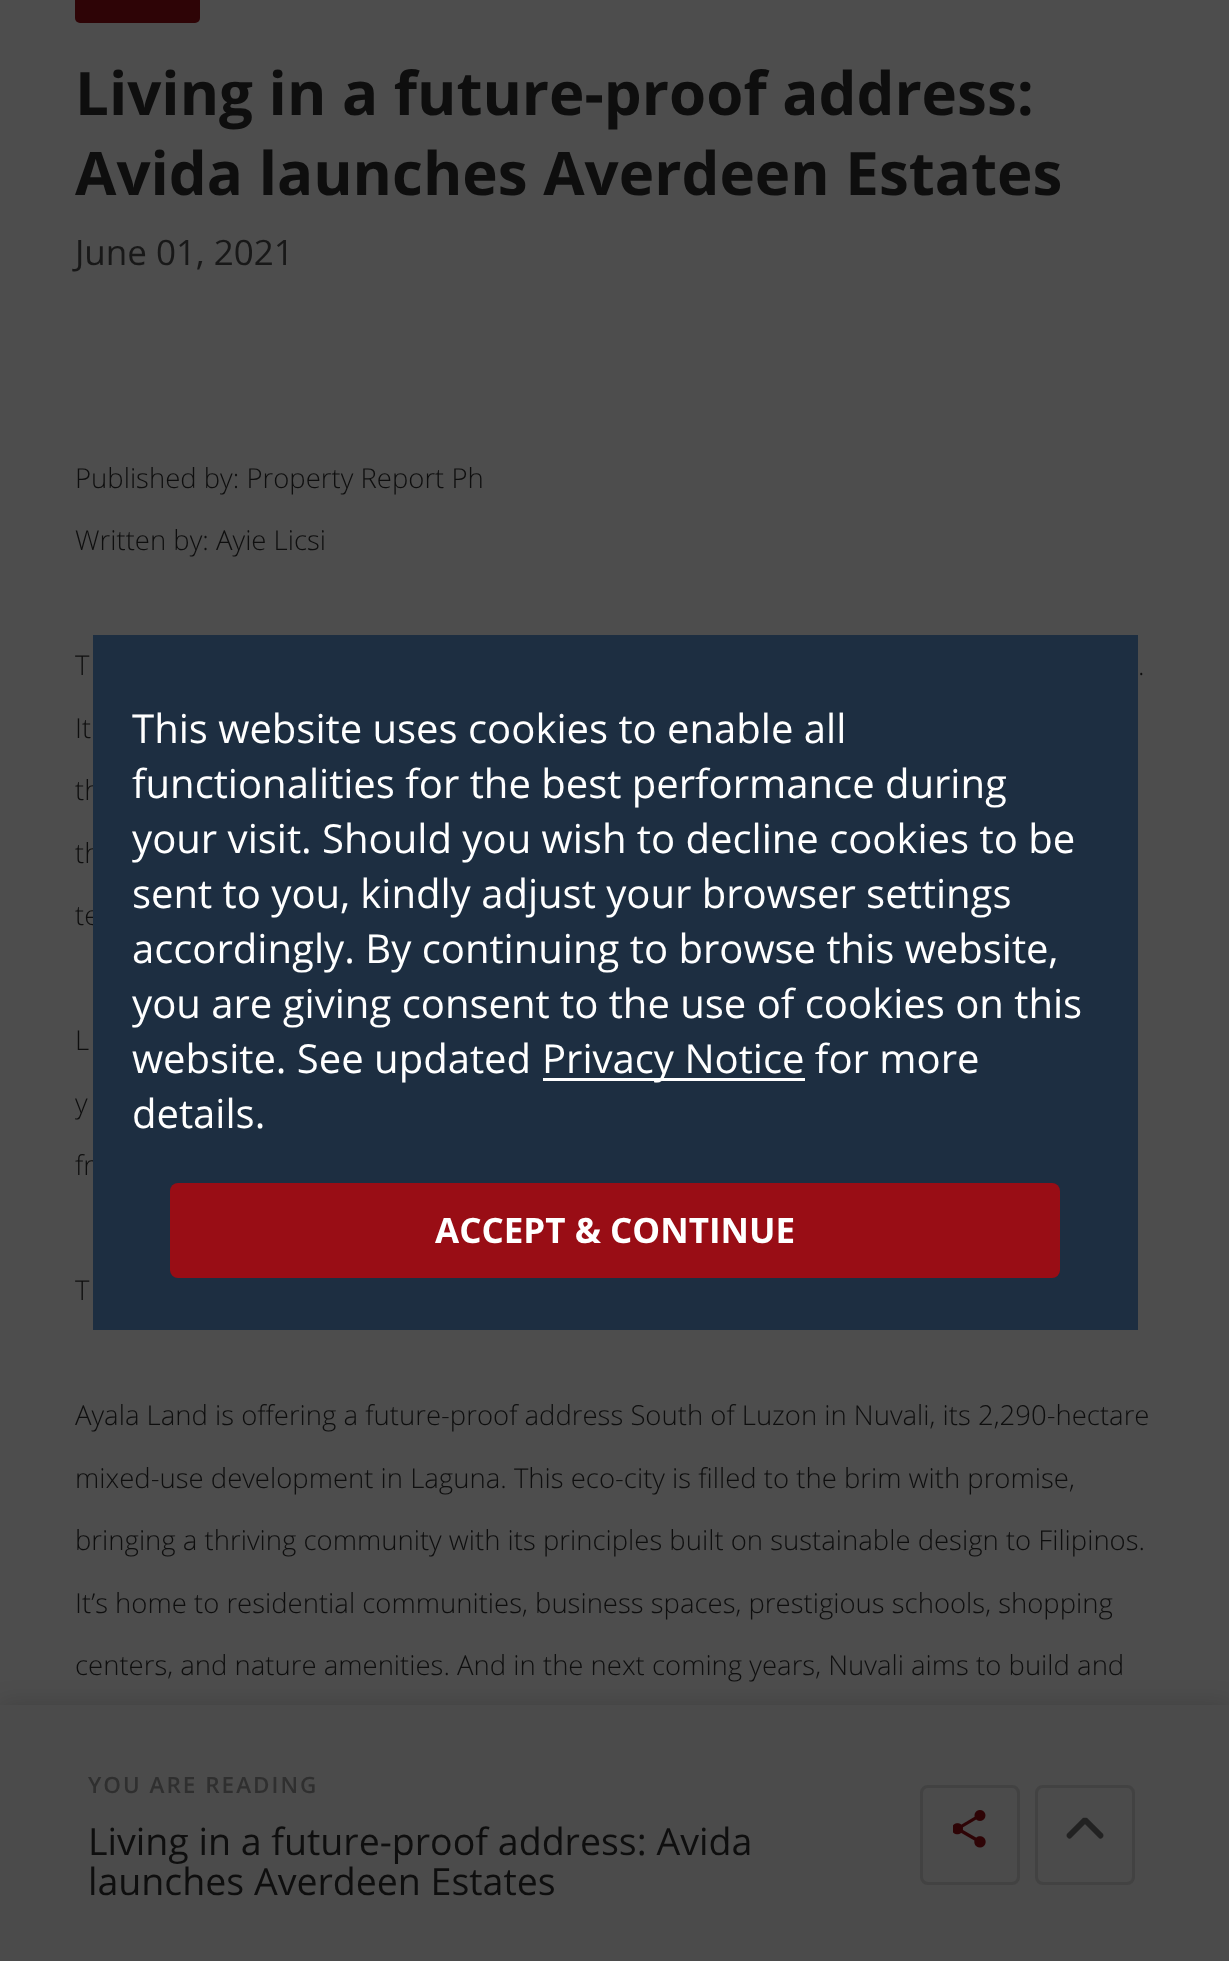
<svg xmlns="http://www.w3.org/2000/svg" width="1229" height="1961">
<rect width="100%" height="100%" fill="#4d4d4d"/>
<rect x="75" y="-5" width="125" height="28" rx="5" fill="#2e0406"/>
<text x="75" y="115" style="font-family:Open Sans;font-size:60px;font-weight:bold;fill:#0e0e0e">Living in a future-proof address:</text>
<text x="75" y="195" style="font-family:Open Sans;font-size:60px;font-weight:bold;fill:#0e0e0e">Avida launches Averdeen Estates</text>
<text x="75" y="265" style="font-family:Open Sans;font-size:35px;fill:#181818">June 01, 2021</text>
<text x="75" y="488" style="font-family:Open Sans;font-size:27.5px;font-weight:300;fill:#0e0e0e">Published by: Property Report Ph</text>
<text x="75" y="550" style="font-family:Open Sans;font-size:27.5px;font-weight:300;fill:#0e0e0e">Written by: Ayie Licsi</text>
<text x="75" y="675" style="font-family:Open Sans;font-size:27.5px;font-weight:300;fill:#0e0e0e">T</text>
<text x="1138" y="675" style="font-family:Open Sans;font-size:27.5px;font-weight:300;fill:#0e0e0e">.</text>
<text x="75" y="738" style="font-family:Open Sans;font-size:27.5px;font-weight:300;fill:#0e0e0e">It</text>
<text x="75" y="800" style="font-family:Open Sans;font-size:27.5px;font-weight:300;fill:#0e0e0e">th</text>
<text x="75" y="863" style="font-family:Open Sans;font-size:27.5px;font-weight:300;fill:#0e0e0e">th</text>
<text x="75" y="925" style="font-family:Open Sans;font-size:27.5px;font-weight:300;fill:#0e0e0e">te</text>
<text x="75" y="1050" style="font-family:Open Sans;font-size:27.5px;font-weight:300;fill:#0e0e0e">L</text>
<text x="75" y="1113" style="font-family:Open Sans;font-size:27.5px;font-weight:300;fill:#0e0e0e">y</text>
<text x="75" y="1175" style="font-family:Open Sans;font-size:27.5px;font-weight:300;fill:#0e0e0e">fr</text>
<text x="75" y="1300" style="font-family:Open Sans;font-size:27.5px;font-weight:300;fill:#0e0e0e">T</text>
<text x="75" y="1425" style="font-family:Open Sans;font-size:27.5px;font-weight:300;fill:#0e0e0e">Ayala Land is offering a future-proof address South of Luzon in Nuvali, its 2,290-hectare</text>
<text x="75" y="1488" style="font-family:Open Sans;font-size:27.5px;font-weight:300;fill:#0e0e0e">mixed-use development in Laguna. This eco-city is filled to the brim with promise,</text>
<text x="75" y="1550" style="font-family:Open Sans;font-size:27.5px;font-weight:300;fill:#0e0e0e">bringing a thriving community with its principles built on sustainable design to Filipinos.</text>
<text x="75" y="1613" style="font-family:Open Sans;font-size:27.5px;font-weight:300;fill:#0e0e0e">It’s home to residential communities, business spaces, prestigious schools, shopping</text>
<text x="75" y="1675" style="font-family:Open Sans;font-size:27.5px;font-weight:300;fill:#0e0e0e">centers, and nature amenities. And in the next coming years, Nuvali aims to build and</text>
<rect y="1705" width="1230" height="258" fill="#0000002b" filter="blur(12.5px)"/>
<rect y="1705" width="1229" height="256" fill="#4b4b4b"/>
<text x="88" y="1793" style="font-family:Open Sans;font-size:22.5px;font-weight:600;letter-spacing:2px;fill:#2f2f2f">YOU ARE READING</text>
<text x="88" y="1855" style="font-family:Open Sans;font-size:37.5px;fill:#0e0e0e">Living in a future-proof address: Avida</text>
<text x="88" y="1895" style="font-family:Open Sans;font-size:37.5px;fill:#0e0e0e">launches Averdeen Estates</text>
<rect x="921.5" y="1786.5" width="97" height="97" rx="6.5" fill="none" stroke="#424242" stroke-width="3"/>
<image x="953" y="1810" width="33" height="38" href="media/1.png"/>
<rect x="1036.5" y="1786.5" width="97" height="97" rx="6.5" fill="none" stroke="#424242" stroke-width="3"/>
<image x="1066" y="1817" width="38" height="22" href="media/2.png"/>
<rect x="93" y="635" width="1045" height="695" fill="#1d2e41"/>
<text x="132" y="743" style="font-family:Open Sans;font-size:40px;fill:#fff">This website uses cookies to enable all</text>
<text x="132" y="798" style="font-family:Open Sans;font-size:40px;fill:#fff">functionalities for the best performance during</text>
<text x="132" y="853" style="font-family:Open Sans;font-size:40px;fill:#fff">your visit. Should you wish to decline cookies to be</text>
<text x="132" y="908" style="font-family:Open Sans;font-size:40px;fill:#fff">sent to you, kindly adjust your browser settings</text>
<text x="132" y="963" style="font-family:Open Sans;font-size:40px;fill:#fff">accordingly. By continuing to browse this website,</text>
<text x="132" y="1018" style="font-family:Open Sans;font-size:40px;fill:#fff">you are giving consent to the use of cookies on this</text>
<text x="132" y="1073" style="font-family:Open Sans;font-size:40px;fill:#fff">website. See updated</text>
<rect x="543" y="1078" width="262" height="3" fill="#fff"/>
<text x="542" y="1073" style="font-family:Open Sans;font-size:40px;fill:#fff">Privacy Notice for more</text>
<text x="132" y="1128" style="font-family:Open Sans;font-size:40px;fill:#fff">details.</text>
<rect x="170" y="1183" width="890" height="95" rx="8" fill="#990d15"/>
<text x="435" y="1243" style="font-family:Open Sans;font-size:35px;font-weight:bold;fill:#fff">ACCEPT &amp; CONTINUE</text>
</svg>
